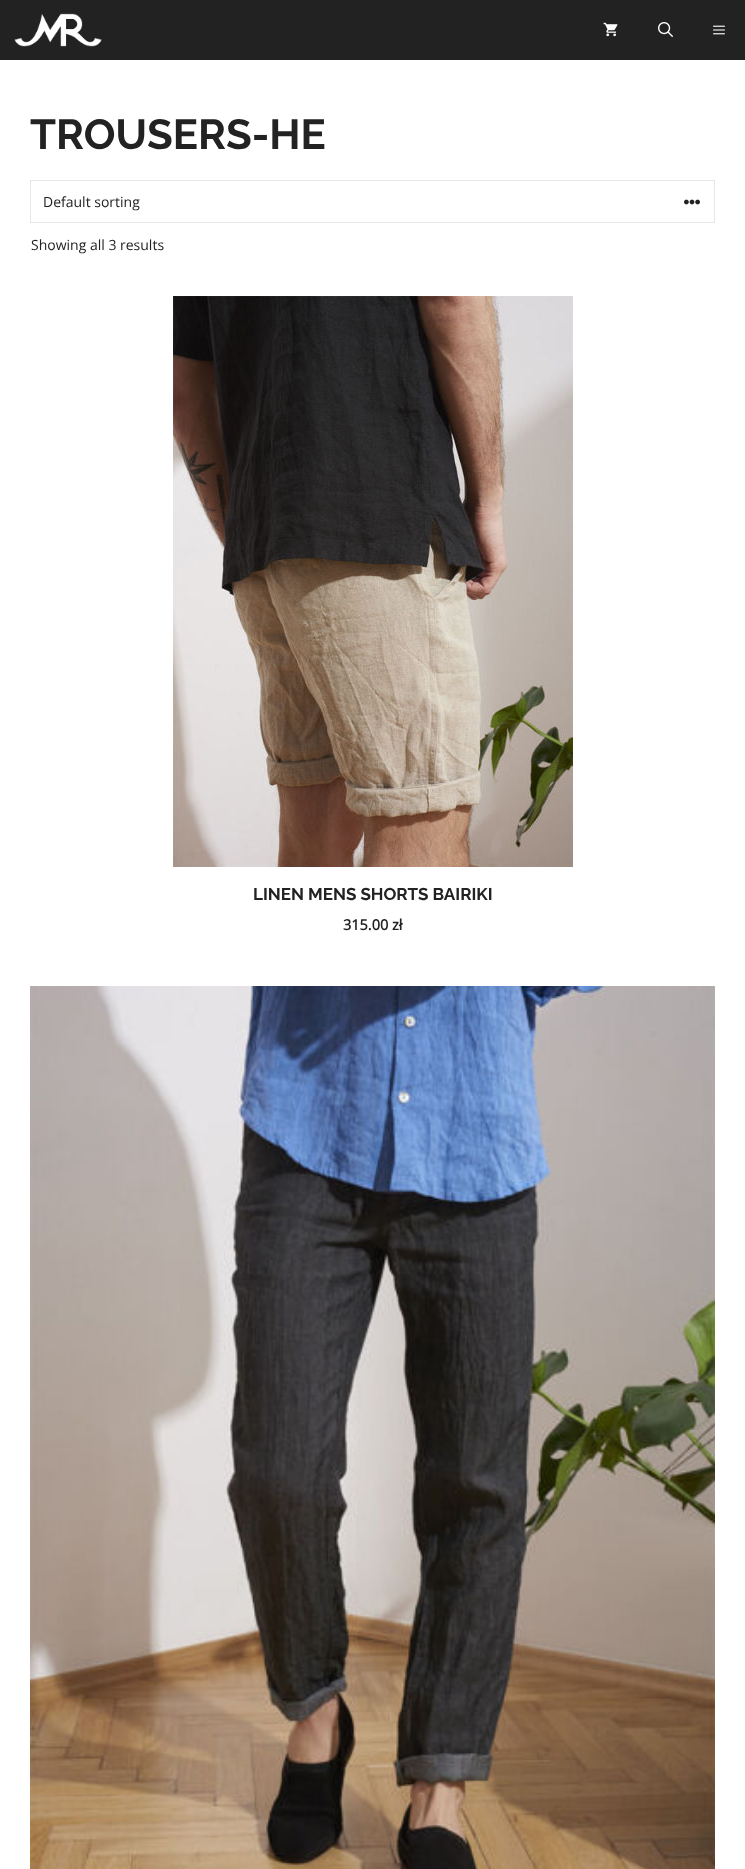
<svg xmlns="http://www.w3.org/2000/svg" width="745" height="1869">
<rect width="100%" height="100%" fill="#fff"/>
<rect width="745" height="60" fill="#222"/>
<image x="14" y="13" width="88" height="34" href="media/1.png"/>
<image x="603" y="22" width="15" height="15" href="media/2.png"/>
<image x="658" y="22" width="15" height="15" href="media/3.png"/>
<image x="713" y="25" width="12" height="10" href="media/4.png"/>
<text x="30" y="149" style="font-family:Raleway;font-size:42px;font-weight:bold;fill:#222">TROUSERS-HE</text>
<rect x="30.5" y="180.5" width="684" height="42" fill="none" stroke="#e6e6e6"/>
<text x="43" y="207" style="font-family:Open Sans;font-size:14px;fill:#222">Default sorting</text>
<image x="684" y="199" width="16" height="6" href="media/5.png"/>
<text x="31" y="250" style="font-family:Open Sans;font-size:14px;fill:#222">Showing all 3 results</text>
<image x="173" y="296" width="400" height="571" href="media/6.png"/>
<text x="253" y="900" style="font-family:Raleway;font-size:17px;font-weight:bold;fill:#222">LINEN MENS SHORTS BAIRIKI</text>
<text x="343" y="930" style="font-family:Open Sans;font-size:14.5px;font-weight:bold;fill:#222">315.00 zł</text>
<image x="30" y="986" width="685" height="883" href="media/7.png"/>
</svg>
